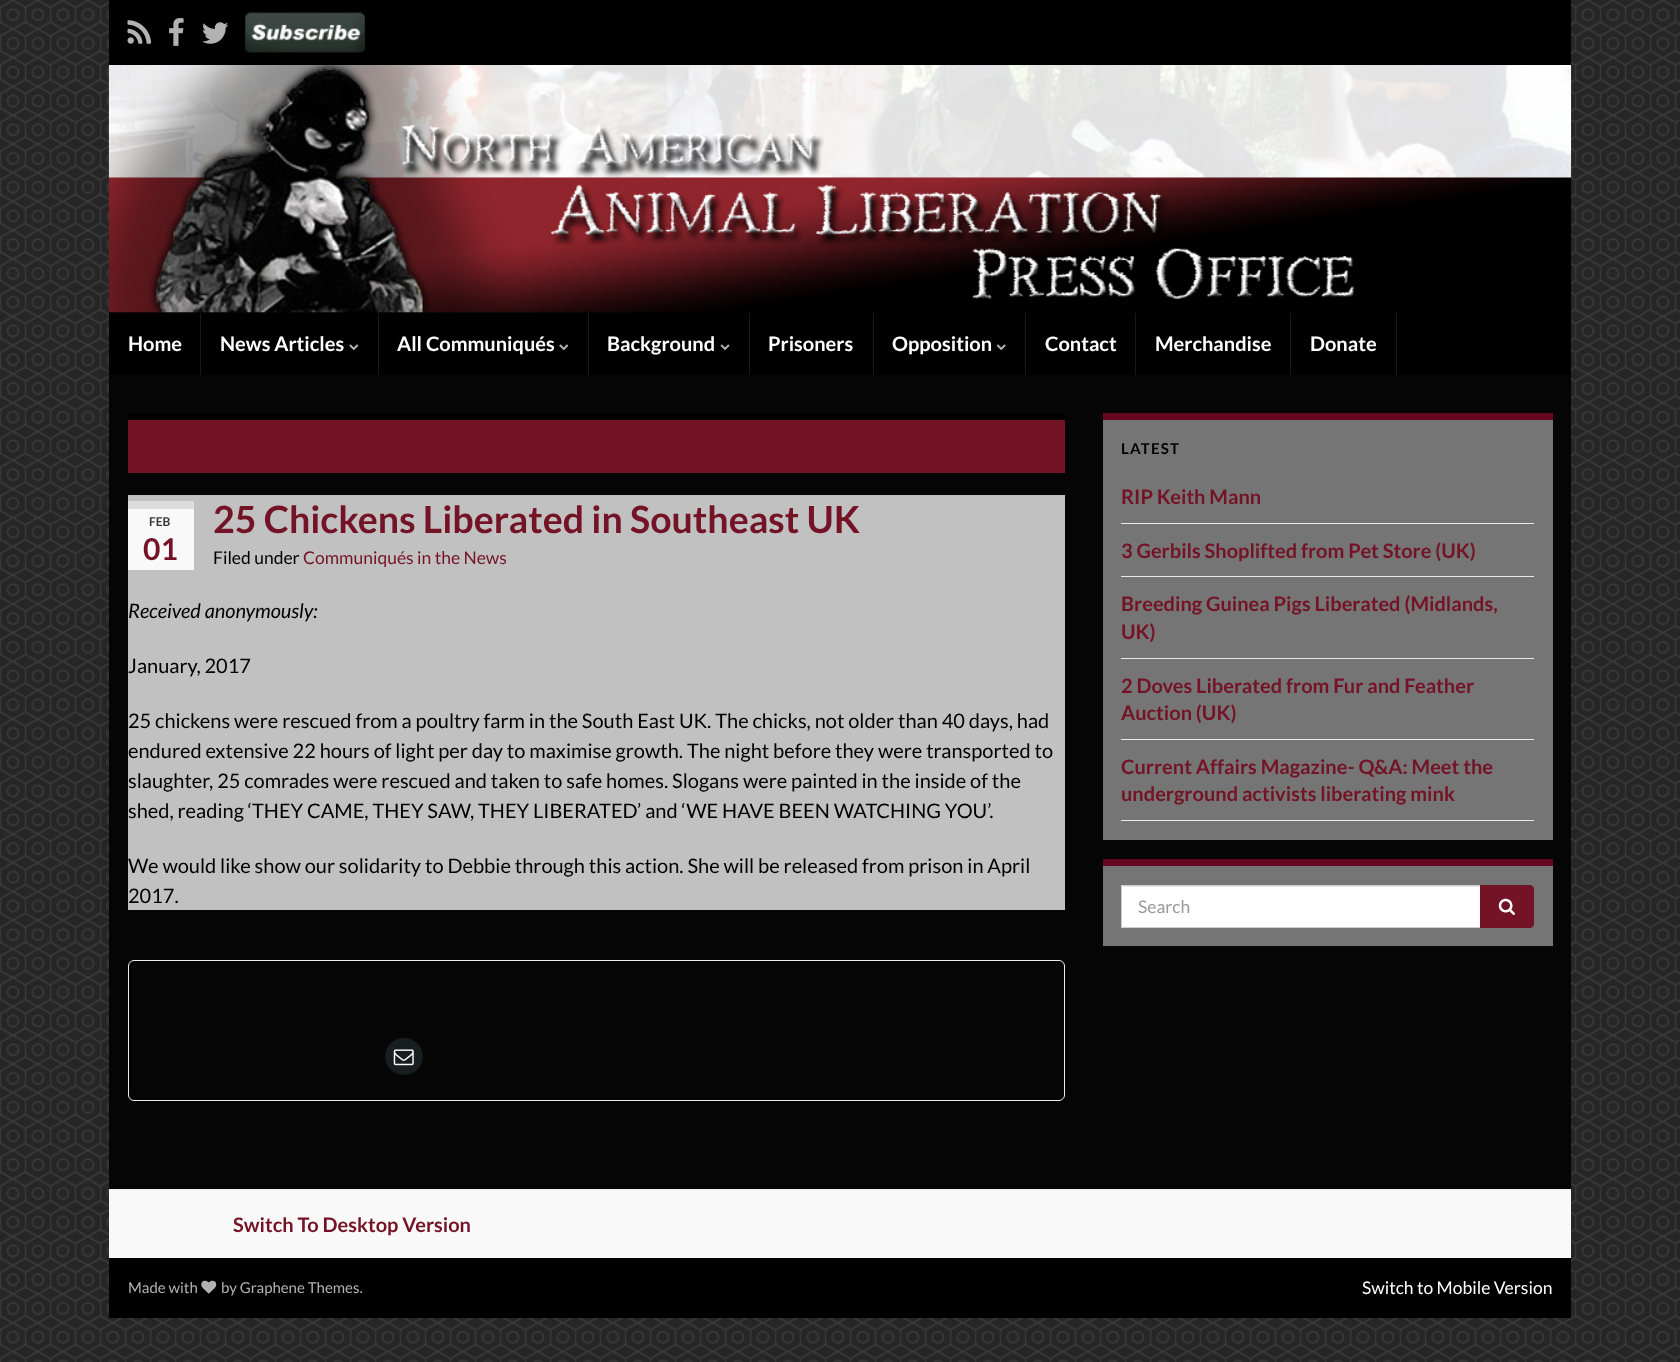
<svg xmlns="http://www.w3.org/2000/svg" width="1680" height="1362">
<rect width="100%" height="100%" fill="#fff"/>
<image x="0" y="0" width="1680" height="1362" href="media/1.png"/>
<rect x="109" width="1462" height="65" fill="#000"/>
<image x="127" y="20" width="25" height="24" href="media/2.png"/>
<image x="169" y="18" width="15" height="28" href="media/3.png"/>
<image x="202" y="22" width="27" height="22" href="media/4.png"/>
<image x="245" y="12" width="120" height="41" href="media/5.png"/>
<rect x="109" y="312" width="1462" height="1" fill="#050505"/>
<image x="108" y="65" width="1464" height="248" href="media/6.png"/>
<rect x="109" y="313" width="1462" height="62" fill="#000"/>
<rect x="200" y="313" width="1" height="62" fill="#1a1a1a"/>
<text x="128" y="351" style="font-family:Lato;font-size:20px;font-weight:bold;fill:#fff">Home</text>
<rect x="378" y="313" width="1" height="62" fill="#1a1a1a"/>
<text x="220" y="351" style="font-family:Lato;font-size:20px;font-weight:bold;fill:#fff">News Articles</text>
<image x="349" y="344" width="10" height="7" href="media/7.png"/>
<rect x="588" y="313" width="1" height="62" fill="#1a1a1a"/>
<text x="397" y="351" style="font-family:Lato;font-size:20px;font-weight:bold;fill:#fff">All Communiqués</text>
<image x="559" y="344" width="10" height="7" href="media/7.png"/>
<rect x="749" y="313" width="1" height="62" fill="#1a1a1a"/>
<text x="607" y="351" style="font-family:Lato;font-size:20px;font-weight:bold;fill:#fff">Background</text>
<image x="720" y="344" width="10" height="7" href="media/8.png"/>
<rect x="873" y="313" width="1" height="62" fill="#1a1a1a"/>
<text x="768" y="351" style="font-family:Lato;font-size:20px;font-weight:bold;fill:#fff">Prisoners</text>
<rect x="1025" y="313" width="1" height="62" fill="#1a1a1a"/>
<text x="892" y="351" style="font-family:Lato;font-size:20px;font-weight:bold;fill:#fff">Opposition</text>
<image x="996" y="344" width="10" height="7" href="media/9.png"/>
<rect x="1135" y="313" width="1" height="62" fill="#1a1a1a"/>
<text x="1045" y="351" style="font-family:Lato;font-size:20px;font-weight:bold;fill:#fff">Contact</text>
<rect x="1290" y="313" width="1" height="62" fill="#1a1a1a"/>
<text x="1155" y="351" style="font-family:Lato;font-size:20px;font-weight:bold;fill:#fff">Merchandise</text>
<rect x="1396" y="313" width="1" height="62" fill="#1a1a1a"/>
<text x="1310" y="351" style="font-family:Lato;font-size:20px;font-weight:bold;fill:#fff">Donate</text>
<rect x="109" y="375" width="1462" height="814" fill="#050505"/>
<rect x="128" y="420" width="937" height="53" fill="#741326"/>
<rect x="128" y="413" width="937" height="7" fill="#000"/>
<rect x="128" y="495" width="937" height="415" fill="#c1c1c1"/>
<rect x="128" y="509" width="66" height="61" fill="#f9f9f9"/>
<rect x="128" y="501" width="66" height="8" fill="#dbdbdb"/>
<text x="149" y="526" style="font-family:Lato;font-size:12px;font-weight:bold;fill:#3b383d">FEB</text>
<text x="143" y="560" style="font-family:Lato;font-size:30px;font-weight:bold;fill:#741326">01</text>
<text x="213" y="533" style="font-family:Lato;font-size:37.5px;font-weight:bold;fill:#741326">25 Chickens Liberated in Southeast UK</text>
<text x="213" y="564" style="font-family:Lato;font-size:17.5px;fill:#000">Filed under</text>
<text x="303" y="564" style="font-family:Lato;font-size:17.5px;fill:#741326">Communiqués in the News</text>
<text x="128" y="618" style="font-family:Lato;font-size:20px;font-style:italic;fill:#000">Received anonymously:</text>
<text x="128" y="673" style="font-family:Lato;font-size:20px;fill:#000">January, 2017</text>
<text x="128" y="728" style="font-family:Lato;font-size:20px;fill:#000">25 chickens were rescued from a poultry farm in the South East UK. The chicks, not older than 40 days, had</text>
<text x="128" y="758" style="font-family:Lato;font-size:20px;fill:#000">endured extensive 22 hours of light per day to maximise growth. The night before they were transported to</text>
<text x="128" y="788" style="font-family:Lato;font-size:20px;fill:#000">slaughter, 25 comrades were rescued and taken to safe homes. Slogans were painted in the inside of the</text>
<text x="128" y="818" style="font-family:Lato;font-size:20px;fill:#000">shed, reading ‘THEY CAME, THEY SAW, THEY LIBERATED’ and ‘WE HAVE BEEN WATCHING YOU’.</text>
<text x="128" y="873" style="font-family:Lato;font-size:20px;fill:#000">We would like show our solidarity to Debbie through this action. She will be released from prison in April</text>
<text x="128" y="903" style="font-family:Lato;font-size:20px;fill:#000">2017.</text>
<rect x="128.5" y="960.5" width="936" height="140" rx="5.5" fill="none" stroke="#ebedf0"/>
<rect x="385" y="1038" width="38" height="37" rx="18.5" fill="#181e1f"/>
<image x="393" y="1049" width="21" height="17" href="media/10.png"/>
<rect x="1103" y="420" width="450" height="420" fill="#757575"/>
<rect x="1103" y="413" width="450" height="7" fill="#640822"/>
<text x="1121" y="454" style="font-family:Lato;font-size:15px;font-weight:bold;letter-spacing:1.25px;fill:#000">LATEST</text>
<rect x="1121" y="523" width="413" height="1" fill="#e9e9e9"/>
<text x="1121" y="504" style="font-family:Lato;font-size:20px;font-weight:bold;fill:#741326">RIP Keith Mann</text>
<rect x="1121" y="576" width="413" height="1" fill="#e9e9e9"/>
<text x="1121" y="558" style="font-family:Lato;font-size:20px;font-weight:bold;fill:#741326">3 Gerbils Shoplifted from Pet Store (UK)</text>
<rect x="1121" y="658" width="413" height="1" fill="#e9e9e9"/>
<text x="1121" y="611" style="font-family:Lato;font-size:20px;font-weight:bold;fill:#741326">Breeding Guinea Pigs Liberated (Midlands,</text>
<text x="1121" y="639" style="font-family:Lato;font-size:20px;font-weight:bold;fill:#741326">UK)</text>
<rect x="1121" y="739" width="413" height="1" fill="#e9e9e9"/>
<text x="1121" y="693" style="font-family:Lato;font-size:20px;font-weight:bold;fill:#741326">2 Doves Liberated from Fur and Feather</text>
<text x="1121" y="720" style="font-family:Lato;font-size:20px;font-weight:bold;fill:#741326">Auction (UK)</text>
<rect x="1121" y="820" width="413" height="1" fill="#e9e9e9"/>
<text x="1121" y="774" style="font-family:Lato;font-size:20px;font-weight:bold;fill:#741326">Current Affairs Magazine- Q&amp;A: Meet the</text>
<text x="1121" y="801" style="font-family:Lato;font-size:20px;font-weight:bold;fill:#741326">underground activists liberating mink</text>
<rect x="1103" y="866" width="450" height="80" fill="#757575"/>
<rect x="1103" y="859" width="450" height="7" fill="#640822"/>
<rect x="1122" y="886" width="358" height="41" fill="#fff"/>
<rect x="1123" y="886" width="357" height="1" fill="#ececec"/>
<rect x="1121.5" y="885.5" width="359" height="42" fill="none" stroke="#ccc"/>
<text x="1138" y="913" style="font-family:Lato;font-size:17.5px;fill:#999">Search</text>
<path d="M1480 885h50c2 0 4 2 4 4v35c0 2-2 4-4 4h-50z" fill="#741326"/>
<image x="1498" y="898" width="17" height="17" href="media/11.png"/>
<rect x="109" y="1190" width="1462" height="68" fill="#f9f9f9"/>
<rect x="109" y="1189" width="1462" height="1" fill="#eee"/>
<text x="233" y="1232" style="font-family:Lato;font-size:20px;font-weight:bold;fill:#741326">Switch To Desktop Version</text>
<rect x="109" y="1258" width="1462" height="60" fill="#000"/>
<text x="128" y="1293" style="font-family:Lato;font-size:15px;fill:#b3b3b3">Made with</text>
<image x="201" y="1280" width="16" height="14" href="media/12.png"/>
<text x="221" y="1293" style="font-family:Lato;font-size:15px;fill:#b3b3b3">by Graphene Themes.</text>
<text x="1362" y="1294" style="font-family:Lato;font-size:17.5px;fill:#fff">Switch to Mobile Version</text>
</svg>
